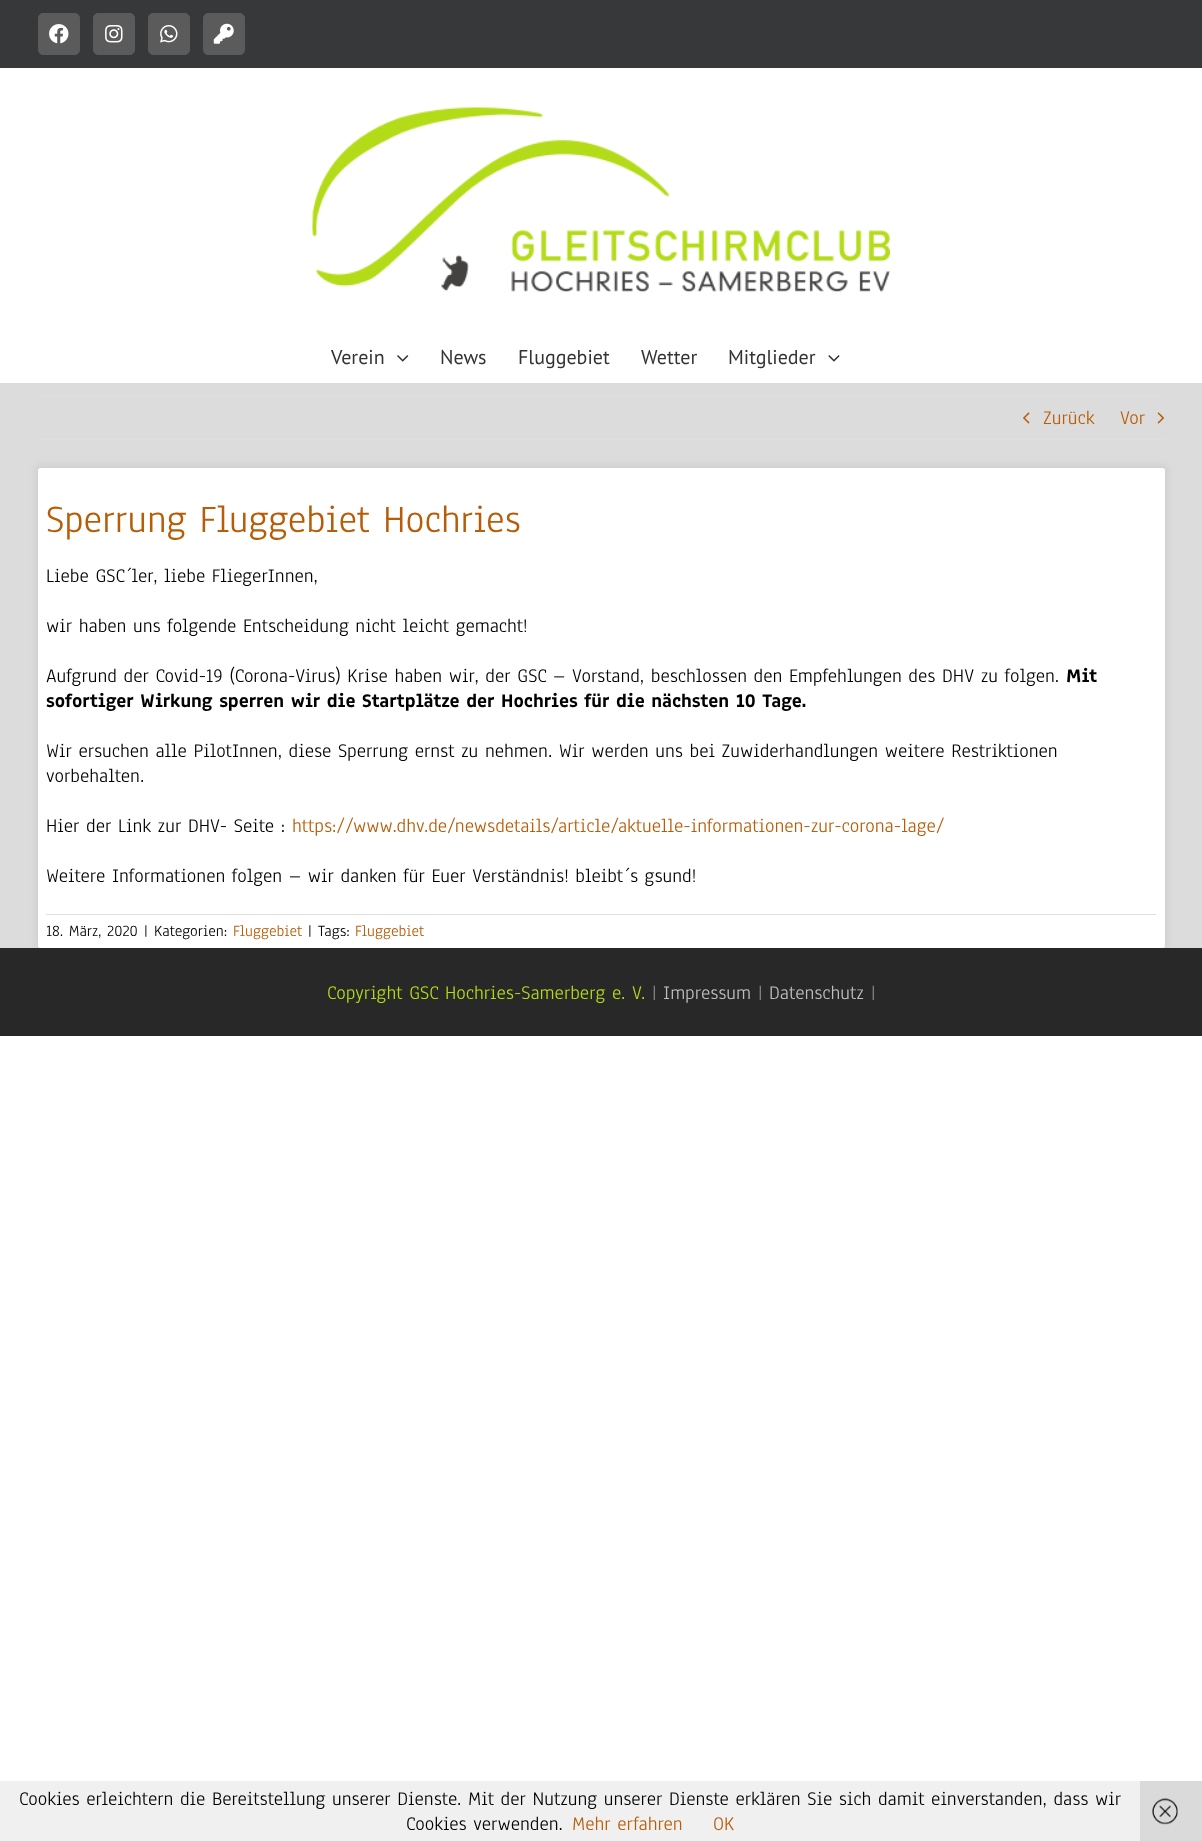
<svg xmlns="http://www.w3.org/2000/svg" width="1202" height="1841">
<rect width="100%" height="100%" fill="#fff"/>
<rect width="1202" height="68" fill="#363839"/>
<rect x="38.5" y="13.5" width="41" height="41" rx="4.5" fill="#5b5b5b" stroke="#5b5b5b"/>
<image x="49" y="24" width="20" height="20" href="media/1.png"/>
<rect x="93.5" y="13.5" width="41" height="41" rx="4.5" fill="#5b5b5b" stroke="#5b5b5b"/>
<image x="105" y="25" width="18" height="18" href="media/2.png"/>
<rect x="148.5" y="13.5" width="41" height="41" rx="4.5" fill="#5b5b5b" stroke="#5b5b5b"/>
<image x="160" y="25" width="18" height="18" href="media/3.png"/>
<rect x="203.5" y="13.5" width="41" height="41" rx="4.5" fill="#5b5b5b" stroke="#5b5b5b"/>
<image x="213" y="23" width="21" height="21" href="media/4.png"/>
<image x="312" y="107" width="578" height="185" href="media/5.png"/>
<text x="331" y="364" style="font-family:PT Sans;font-size:20px;fill:#333">Verein</text>
<image x="397" y="355" width="12" height="7" href="media/6.png"/>
<text x="440" y="364" style="font-family:PT Sans;font-size:20px;fill:#333">News</text>
<text x="518" y="364" style="font-family:PT Sans;font-size:20px;fill:#333">Fluggebiet</text>
<text x="641" y="364" style="font-family:PT Sans;font-size:20px;fill:#333">Wetter</text>
<text x="728" y="364" style="font-family:PT Sans;font-size:20px;fill:#333">Mitglieder</text>
<image x="828" y="355" width="12" height="7" href="media/7.png"/>
<rect y="383" width="1202" height="565" fill="#dcdcdc"/>
<rect x="38" y="395" width="1127" height="1" fill="#e0dede"/>
<rect x="38" y="439" width="1127" height="1" fill="#e0dede"/>
<image x="1023" y="412" width="7" height="12" href="media/8.png"/>
<text x="1043" y="424" style="font-family:Anaheim;font-size:20px;fill:#b75c07">Zurück</text>
<text x="1120" y="424" style="font-family:Anaheim;font-size:20px;fill:#b75c07">Vor</text>
<image x="1157" y="412" width="8" height="12" href="media/9.png"/>
<rect x="35" y="465" width="1133" height="485" rx="5" fill="#87878724" filter="blur(3px)"/>
<rect x="38" y="468" width="1127" height="480" rx="2.5" fill="#fff"/>
<text x="46" y="532" style="font-family:Anaheim;font-size:40px;fill:#b75c07">Sperrung Fluggebiet Hochries</text>
<text x="46" y="582" style="font-family:Anaheim;font-size:20px;fill:#000">Liebe GSC´ler, liebe FliegerInnen,</text>
<text x="46" y="632" style="font-family:Anaheim;font-size:20px;fill:#000">wir haben uns folgende Entscheidung nicht leicht gemacht!</text>
<text x="46" y="682" style="font-family:Anaheim;font-size:20px;fill:#000">Aufgrund der Covid-19 (Corona-Virus) Krise haben wir, der GSC – Vorstand, beschlossen den Empfehlungen des DHV zu folgen.</text>
<text x="1066" y="682" style="font-family:Anaheim;font-size:20px;font-weight:bold;fill:#000">Mit</text>
<text x="46" y="707" style="font-family:Anaheim;font-size:20px;font-weight:bold;fill:#000">sofortiger Wirkung sperren wir die Startplätze der Hochries für die nächsten 10 Tage.</text>
<text x="46" y="757" style="font-family:Anaheim;font-size:20px;fill:#000">Wir ersuchen alle PilotInnen, diese Sperrung ernst zu nehmen. Wir werden uns bei Zuwiderhandlungen weitere Restriktionen</text>
<text x="46" y="782" style="font-family:Anaheim;font-size:20px;fill:#000">vorbehalten.</text>
<text x="46" y="832" style="font-family:Anaheim;font-size:20px;fill:#000">Hier der Link zur DHV- Seite :</text>
<text x="292" y="832" style="font-family:Anaheim;font-size:20px;fill:#b75c07">https://www.dhv.de/newsdetails/article/aktuelle-informationen-zur-corona-lage/</text>
<text x="46" y="882" style="font-family:Anaheim;font-size:20px;fill:#000">Weitere Informationen folgen – wir danken für Euer Verständnis! bleibt´s gsund!</text>
<rect x="46" y="914" width="1110" height="1" fill="#e0dede"/>
<text x="46" y="936" style="font-family:Anaheim;font-size:16.25px;fill:#000">18. März, 2020</text>
<text x="144" y="936" style="font-family:Anaheim;font-size:16.25px;fill:#000">|</text>
<text x="154" y="936" style="font-family:Anaheim;font-size:16.25px;fill:#000">Kategorien:</text>
<text x="233" y="936" style="font-family:Anaheim;font-size:16.25px;fill:#b75c07">Fluggebiet</text>
<text x="308" y="936" style="font-family:Anaheim;font-size:16.25px;fill:#000">|</text>
<text x="318" y="936" style="font-family:Anaheim;font-size:16.25px;fill:#000">Tags:</text>
<text x="355" y="936" style="font-family:Anaheim;font-size:16.25px;fill:#b75c07">Fluggebiet</text>
<rect y="948" width="1202" height="88" fill="#282828"/>
<text x="327" y="999" style="font-family:Anaheim;font-size:20px;fill:#b3db18">Copyright GSC Hochries-Samerberg e. V.</text>
<text x="652" y="999" style="font-family:Anaheim;font-size:20px;fill:#8c8989">|</text>
<text x="663" y="999" style="font-family:Anaheim;font-size:20px;fill:#bfbfbf">Impressum</text>
<text x="758" y="999" style="font-family:Anaheim;font-size:20px;fill:#8c8989">|</text>
<text x="769" y="999" style="font-family:Anaheim;font-size:20px;fill:#bfbfbf">Datenschutz</text>
<text x="871" y="999" style="font-family:Anaheim;font-size:20px;fill:#8c8989">|</text>
<rect y="1781" width="1140" height="60" fill="#f0f0f0"/>
<text x="19" y="1805" style="font-family:Anaheim;font-size:20px;fill:#000">Cookies erleichtern die Bereitstellung unserer Dienste. Mit der Nutzung unserer Dienste erklären Sie sich damit einverstanden, dass wir</text>
<text x="406" y="1830" style="font-family:Anaheim;font-size:20px;fill:#000">Cookies verwenden.</text>
<text x="572" y="1830" style="font-family:Anaheim;font-size:20px;fill:#b75c07">Mehr erfahren</text>
<text x="713" y="1830" style="font-family:Anaheim;font-size:20px;fill:#b75c07">OK</text>
<rect x="1140" y="1781" width="62" height="60" fill="#dadada"/>
<image x="1152" y="1798" width="26" height="27" href="media/10.png"/>
</svg>
